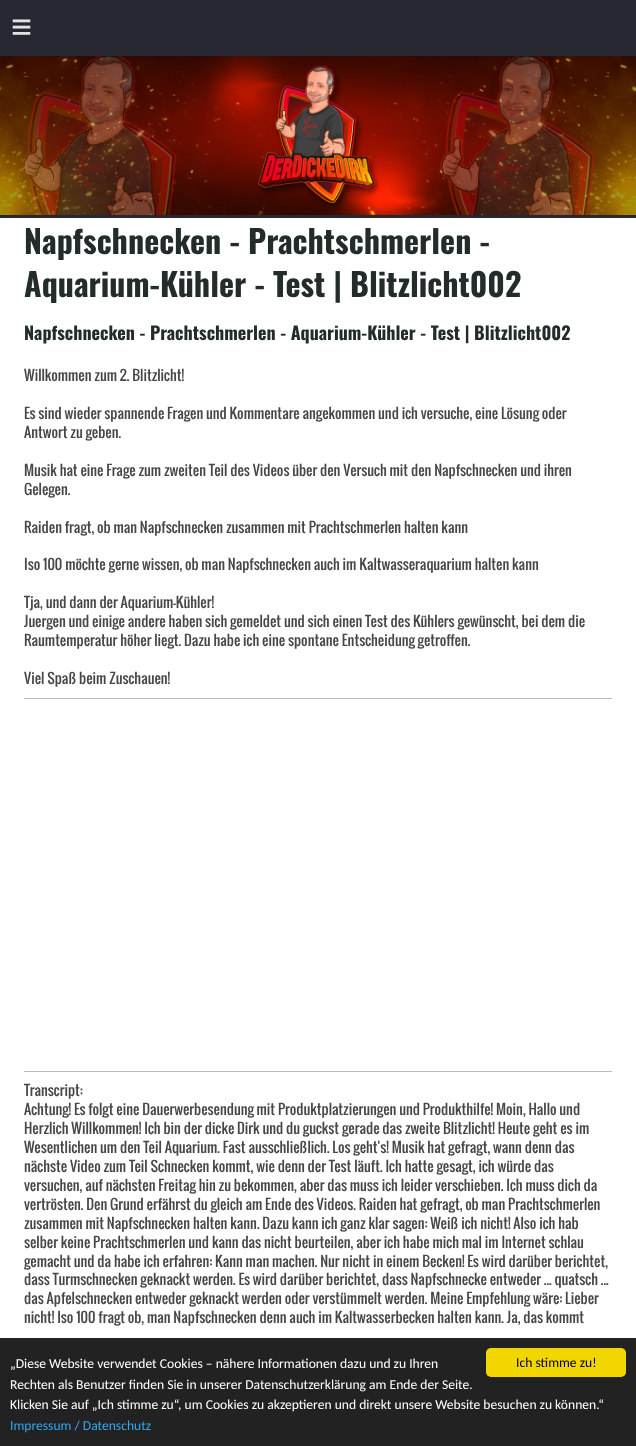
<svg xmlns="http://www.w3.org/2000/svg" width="636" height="1446">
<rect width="100%" height="100%" fill="#fff"/>
<rect width="636" height="218" fill="#262730"/>
<text x="11" y="39" style="font-family:Liberation Sans;font-size:36px;letter-spacing:10px;fill:#e1e2e4">≡</text>
<image x="0" y="56" width="636" height="159" href="media/1.png"/>
<text x="24" y="254" style="font-family:Oswald;font-size:32px;font-weight:bold;fill:#242b2b">Napfschnecken - Prachtschmerlen -</text>
<text x="24" y="297" style="font-family:Oswald;font-size:32px;font-weight:bold;fill:#242b2b">Aquarium-Kühler - Test | Blitzlicht002</text>
<text x="24" y="340" style="font-family:Oswald;font-size:18px;font-weight:bold;fill:#242b2b">Napfschnecken - Prachtschmerlen - Aquarium-Kühler - Test | Blitzlicht002</text>
<text x="24" y="381" style="font-family:Oswald;font-size:14px;fill:#474747">Willkommen zum 2. Blitzlicht!</text>
<text x="24" y="419" style="font-family:Oswald;font-size:14px;fill:#474747">Es sind wieder spannende Fragen und Kommentare angekommen und ich versuche, eine Lösung oder</text>
<text x="24" y="438" style="font-family:Oswald;font-size:14px;fill:#474747">Antwort zu geben.</text>
<text x="24" y="476" style="font-family:Oswald;font-size:14px;fill:#474747">Musik hat eine Frage zum zweiten Teil des Videos über den Versuch mit den Napfschnecken und ihren</text>
<text x="24" y="495" style="font-family:Oswald;font-size:14px;fill:#474747">Gelegen.</text>
<text x="24" y="533" style="font-family:Oswald;font-size:14px;fill:#474747">Raiden fragt, ob man Napfschnecken zusammen mit Prachtschmerlen halten kann</text>
<text x="24" y="570" style="font-family:Oswald;font-size:14px;fill:#474747">Iso 100 möchte gerne wissen, ob man Napfschnecken auch im Kaltwasseraquarium halten kann</text>
<text x="24" y="608" style="font-family:Oswald;font-size:14px;fill:#474747">Tja, und dann der Aquarium-Kühler!</text>
<text x="24" y="627" style="font-family:Oswald;font-size:14px;fill:#474747">Juergen und einige andere haben sich gemeldet und sich einen Test des Kühlers gewünscht, bei dem die</text>
<text x="24" y="646" style="font-family:Oswald;font-size:14px;fill:#474747">Raumtemperatur höher liegt. Dazu habe ich eine spontane Entscheidung getroffen.</text>
<text x="24" y="684" style="font-family:Oswald;font-size:14px;fill:#474747">Viel Spaß beim Zuschauen!</text>
<rect x="24" y="698" width="588" height="1" fill="#bababa"/>
<rect x="24" y="1071" width="588" height="1" fill="#bababa"/>
<text x="24" y="1096" style="font-family:Oswald;font-size:14px;fill:#474747">Transcript:</text>
<text x="24" y="1115" style="font-family:Oswald;font-size:14px;fill:#474747">Achtung! Es folgt eine Dauerwerbesendung mit Produktplatzierungen und Produkthilfe! Moin, Hallo und</text>
<text x="24" y="1134" style="font-family:Oswald;font-size:14px;fill:#474747">Herzlich Willkommen! Ich bin der dicke Dirk und du guckst gerade das zweite Blitzlicht! Heute geht es im</text>
<text x="24" y="1153" style="font-family:Oswald;font-size:14px;fill:#474747">Wesentlichen um den Teil Aquarium. Fast ausschließlich. Los geht's! Musik hat gefragt, wann denn das</text>
<text x="24" y="1172" style="font-family:Oswald;font-size:14px;fill:#474747">nächste Video zum Teil Schnecken kommt, wie denn der Test läuft. Ich hatte gesagt, ich würde das</text>
<text x="24" y="1191" style="font-family:Oswald;font-size:14px;fill:#474747">versuchen, auf nächsten Freitag hin zu bekommen, aber das muss ich leider verschieben. Ich muss dich da</text>
<text x="24" y="1210" style="font-family:Oswald;font-size:14px;fill:#474747">vertrösten. Den Grund erfährst du gleich am Ende des Videos. Raiden hat gefragt, ob man Prachtschmerlen</text>
<text x="24" y="1229" style="font-family:Oswald;font-size:14px;fill:#474747">zusammen mit Napfschnecken halten kann. Dazu kann ich ganz klar sagen: Weiß ich nicht! Also ich hab</text>
<text x="24" y="1248" style="font-family:Oswald;font-size:14px;fill:#474747">selber keine Prachtschmerlen und kann das nicht beurteilen, aber ich habe mich mal im Internet schlau</text>
<text x="24" y="1267" style="font-family:Oswald;font-size:14px;fill:#474747">gemacht und da habe ich erfahren: Kann man machen. Nur nicht in einem Becken! Es wird darüber berichtet,</text>
<text x="24" y="1285" style="font-family:Oswald;font-size:14px;fill:#474747">dass Turmschnecken geknackt werden. Es wird darüber berichtet, dass Napfschnecke entweder ... quatsch ...</text>
<text x="24" y="1304" style="font-family:Oswald;font-size:14px;fill:#474747">das Apfelschnecken entweder geknackt werden oder verstümmelt werden. Meine Empfehlung wäre: Lieber</text>
<text x="24" y="1323" style="font-family:Oswald;font-size:14px;fill:#474747">nicht! Iso 100 fragt ob, man Napfschnecken denn auch im Kaltwasserbecken halten kann. Ja, das kommt</text>
<rect y="1338" width="636" height="108" fill="#222"/>
<rect x="486" y="1348" width="140" height="29" rx="5" fill="#f1d600"/>
<text x="516" y="1367" style="font-family:Carlito;font-size:13.6px;fill:#000">Ich stimme zu!</text>
<text x="10" y="1368" style="font-family:Carlito;font-size:13.6px;fill:#fff">„Diese Website verwendet Cookies – nähere Informationen dazu und zu Ihren</text>
<text x="10" y="1389" style="font-family:Carlito;font-size:13.6px;fill:#fff">Rechten als Benutzer finden Sie in unserer Datenschutzerklärung am Ende der Seite.</text>
<text x="10" y="1409" style="font-family:Carlito;font-size:13.6px;fill:#fff">Klicken Sie auf „Ich stimme zu“, um Cookies zu akzeptieren und direkt unsere Website besuchen zu können.“</text>
<text x="10" y="1430" style="font-family:Carlito;font-size:13.6px;fill:#31a8f0">Impressum / Datenschutz</text>
</svg>
